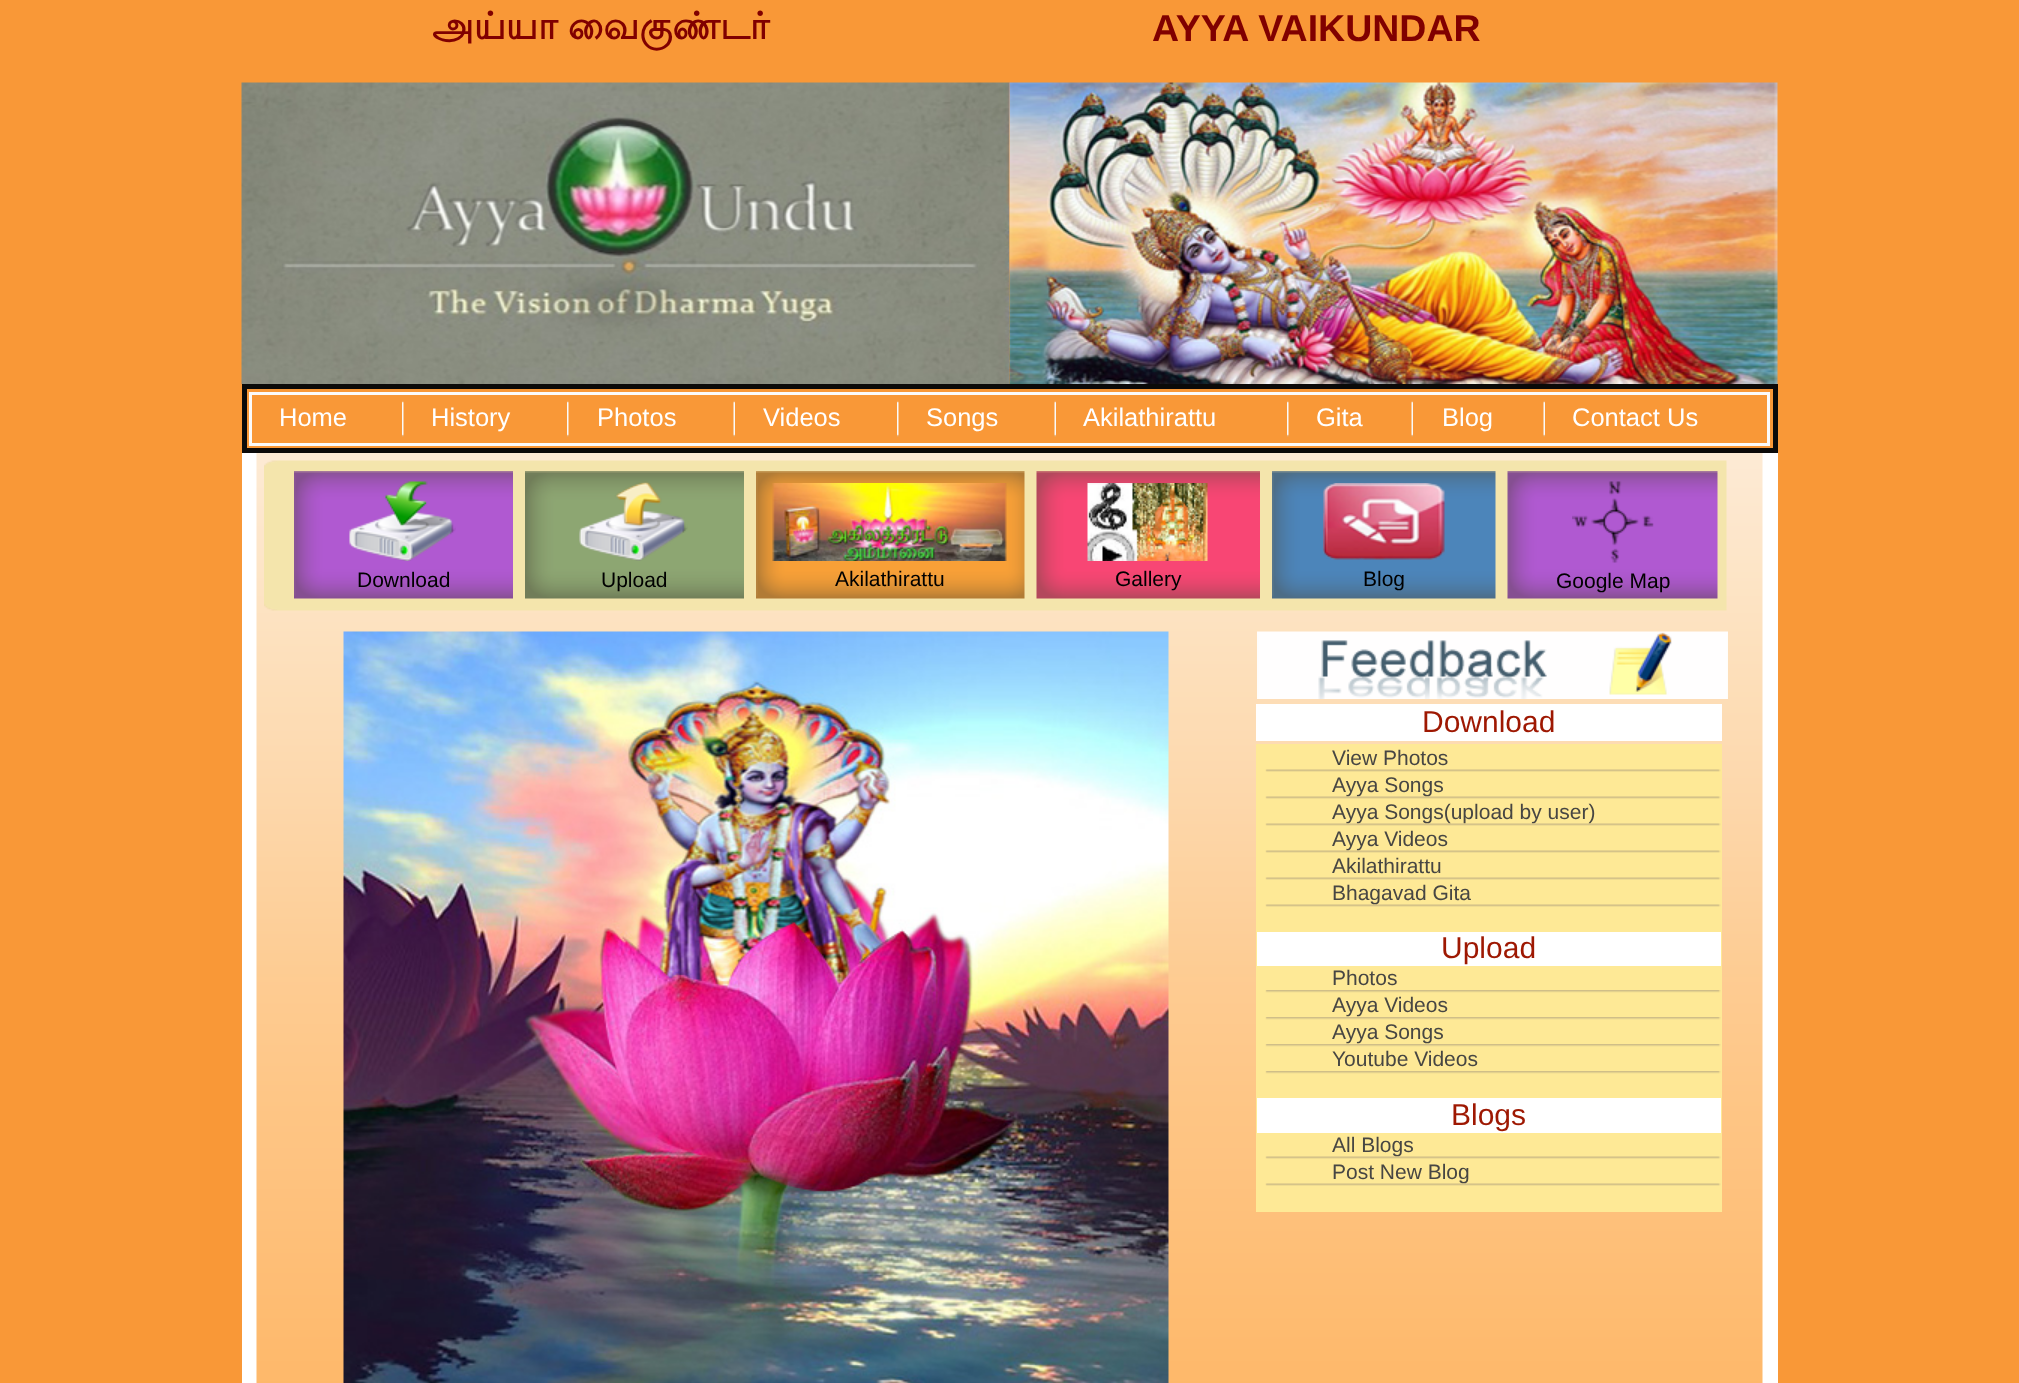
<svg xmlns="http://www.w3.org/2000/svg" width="2019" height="1383">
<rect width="100%" height="100%" fill="#f99837"/>
<text x="432" y="39" word-spacing="-1" style="font-family:Lohit Tamil;font-size:37.5px;font-weight:bold;fill:#800000">அய்யா வைகுண்டர்</text>
<text x="1152" y="41" style="font-family:Liberation Sans;font-size:37.5px;font-weight:bold;fill:#800000">AYYA VAIKUNDAR</text>
<image x="241" y="82" width="769" height="302" href="media/1.png"/>
<image x="1009" y="82" width="769" height="302" href="media/2.png"/>
<rect x="244.5" y="386.5" width="1531" height="64" fill="none" stroke="#0b0a09" stroke-width="5"/>
<rect x="250.5" y="393.5" width="1518" height="51" fill="none" stroke="#fbfbfb" stroke-width="3"/>
<text x="279" y="426" style="font-family:Liberation Sans;font-size:25.5px;fill:#fff">Home</text>
<image x="402" y="400" width="2" height="37" href="media/3.png"/>
<text x="431" y="426" style="font-family:Liberation Sans;font-size:25.5px;fill:#fff">History</text>
<image x="567" y="400" width="2" height="37" href="media/3.png"/>
<text x="597" y="426" style="font-family:Liberation Sans;font-size:25.5px;fill:#fff">Photos</text>
<image x="733" y="400" width="2" height="37" href="media/4.png"/>
<text x="763" y="426" style="font-family:Liberation Sans;font-size:25.5px;fill:#fff">Videos</text>
<image x="897" y="400" width="2" height="37" href="media/3.png"/>
<text x="926" y="426" style="font-family:Liberation Sans;font-size:25.5px;fill:#fff">Songs</text>
<image x="1054" y="400" width="2" height="37" href="media/4.png"/>
<text x="1083" y="426" style="font-family:Liberation Sans;font-size:25.5px;fill:#fff">Akilathirattu</text>
<image x="1287" y="400" width="2" height="37" href="media/3.png"/>
<text x="1316" y="426" style="font-family:Liberation Sans;font-size:25.5px;fill:#fff">Gita</text>
<image x="1411" y="400" width="2" height="37" href="media/4.png"/>
<text x="1442" y="426" style="font-family:Liberation Sans;font-size:25.5px;fill:#fff">Blog</text>
<image x="1543" y="400" width="2" height="37" href="media/4.png"/>
<text x="1572" y="426" style="font-family:Liberation Sans;font-size:25.5px;fill:#fff">Contact Us</text>
<rect x="242" y="453" width="1536" height="930" fill="#fff"/>
<image x="256" y="453" width="1507" height="930" href="media/5.png"/>
<image x="264" y="460" width="1463" height="151" href="media/6.png"/>
<image x="294" y="471" width="219" height="128" href="media/7.png"/>
<image x="349" y="481" width="107" height="80" href="media/8.png"/>
<text x="357" y="587" style="font-family:Liberation Sans;font-size:21px;fill:#000">Download</text>
<image x="525" y="471" width="219" height="128" href="media/9.png"/>
<image x="579" y="481" width="109" height="80" href="media/10.png"/>
<text x="601" y="587" style="font-family:Liberation Sans;font-size:21px;fill:#000">Upload</text>
<image x="756" y="471" width="269" height="128" href="media/11.png"/>
<image x="772" y="483" width="235" height="78" href="media/12.png"/>
<text x="835" y="586" style="font-family:Liberation Sans;font-size:21px;fill:#000">Akilathirattu</text>
<image x="1036" y="471" width="224" height="128" href="media/13.png"/>
<image x="1087" y="483" width="121" height="78" href="media/14.png"/>
<text x="1115" y="586" style="font-family:Liberation Sans;font-size:21px;fill:#000">Gallery</text>
<image x="1272" y="471" width="224" height="128" href="media/15.png"/>
<image x="1323" y="483" width="122" height="77" href="media/16.png"/>
<text x="1363" y="586" style="font-family:Liberation Sans;font-size:21px;fill:#000">Blog</text>
<image x="1507" y="471" width="211" height="128" href="media/17.png"/>
<image x="1572" y="481" width="82" height="82" href="media/18.png"/>
<text x="1556" y="588" style="font-family:Liberation Sans;font-size:21px;fill:#000">Google Map</text>
<image x="343" y="631" width="826" height="752" href="media/19.png"/>
<image x="1257" y="631" width="471" height="68" href="media/20.png"/>
<rect x="1256" y="704" width="466" height="37" fill="#fff"/>
<text x="1422" y="732" style="font-family:Liberation Sans;font-size:30px;fill:#9e1802">Download</text>
<rect x="1256" y="744" width="466" height="468" fill="#fee996"/>
<text x="1332" y="765" style="font-family:Liberation Sans;font-size:21px;fill:#474643">View Photos</text>
<image x="1265" y="769" width="456" height="3" href="media/21.png"/>
<text x="1332" y="792" style="font-family:Liberation Sans;font-size:21px;fill:#474643">Ayya Songs</text>
<image x="1265" y="796" width="456" height="3" href="media/22.png"/>
<text x="1332" y="819" style="font-family:Liberation Sans;font-size:21px;fill:#474643">Ayya Songs(upload by user)</text>
<image x="1265" y="823" width="456" height="3" href="media/23.png"/>
<text x="1332" y="846" style="font-family:Liberation Sans;font-size:21px;fill:#474643">Ayya Videos</text>
<image x="1265" y="850" width="456" height="3" href="media/24.png"/>
<text x="1332" y="873" style="font-family:Liberation Sans;font-size:21px;fill:#474643">Akilathirattu</text>
<image x="1265" y="877" width="456" height="3" href="media/21.png"/>
<text x="1332" y="900" style="font-family:Liberation Sans;font-size:21px;fill:#474643">Bhagavad Gita</text>
<image x="1265" y="904" width="456" height="3" href="media/25.png"/>
<rect x="1257" y="932" width="464" height="34" fill="#fff"/>
<text x="1441" y="958" style="font-family:Liberation Sans;font-size:30px;fill:#9e1802">Upload</text>
<text x="1332" y="985" style="font-family:Liberation Sans;font-size:21px;fill:#474643">Photos</text>
<image x="1265" y="990" width="456" height="3" href="media/26.png"/>
<text x="1332" y="1012" style="font-family:Liberation Sans;font-size:21px;fill:#474643">Ayya Videos</text>
<image x="1265" y="1017" width="456" height="3" href="media/26.png"/>
<text x="1332" y="1039" style="font-family:Liberation Sans;font-size:21px;fill:#474643">Ayya Songs</text>
<image x="1265" y="1044" width="456" height="3" href="media/26.png"/>
<text x="1332" y="1066" style="font-family:Liberation Sans;font-size:21px;fill:#474643">Youtube Videos</text>
<image x="1265" y="1071" width="456" height="3" href="media/26.png"/>
<rect x="1257" y="1098" width="464" height="35" fill="#fff"/>
<text x="1451" y="1125" style="font-family:Liberation Sans;font-size:30px;fill:#9e1802">Blogs</text>
<text x="1332" y="1152" style="font-family:Liberation Sans;font-size:21px;fill:#474643">All Blogs</text>
<image x="1265" y="1156" width="456" height="3" href="media/27.png"/>
<text x="1332" y="1179" style="font-family:Liberation Sans;font-size:21px;fill:#474643">Post New Blog</text>
<image x="1265" y="1183" width="456" height="3" href="media/28.png"/>
</svg>
